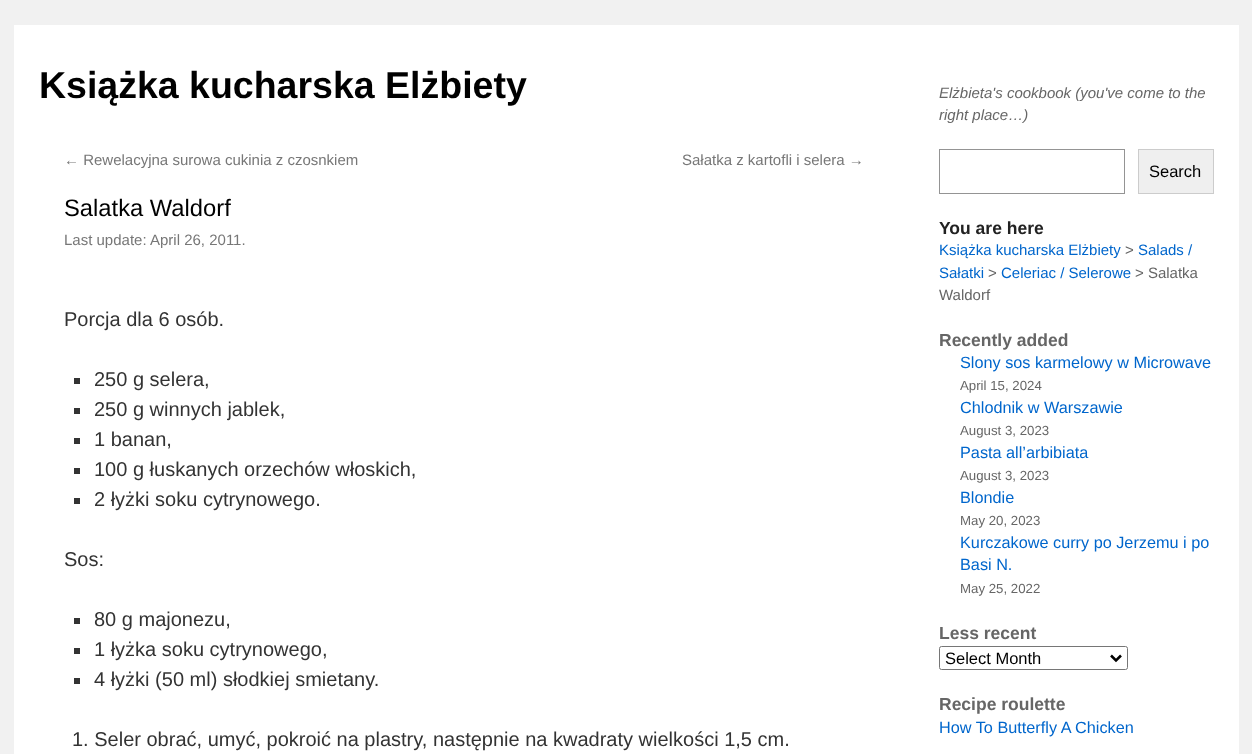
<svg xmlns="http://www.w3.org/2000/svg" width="1252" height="754">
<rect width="100%" height="100%" fill="#f1f1f1"/>
<rect x="14" y="25" width="1225" height="729" fill="#fff"/>
<text x="39" y="98" style="font-family:Liberation Sans;font-size:37.5px;font-weight:bold;fill:#000">Książka kucharska Elżbiety</text>
<text x="939" y="98" style="font-family:Liberation Sans;font-size:15px;font-style:italic;fill:#666">Elżbieta's cookbook (you've come to the</text>
<text x="939" y="120" style="font-family:Liberation Sans;font-size:15px;font-style:italic;fill:#666">right place…)</text>
<text x="64" y="165" style="font-family:Liberation Sans;font-size:15px;fill:#777">← Rewelacyjna surowa cukinia z czosnkiem</text>
<text x="682" y="165" style="font-family:Liberation Sans;font-size:15px;fill:#777">Sałatka z kartofli i selera →</text>
<text x="64" y="216" style="font-family:Liberation Sans;font-size:23.75px;fill:#000">Salatka Waldorf</text>
<text x="64" y="245" style="font-family:Liberation Sans;font-size:15px;fill:#777">Last update:</text>
<text x="150" y="245" style="font-family:Liberation Sans;font-size:15px;fill:#777">April 26, 2011.</text>
<text x="64" y="326" style="font-family:Liberation Sans;font-size:20px;fill:#333">Porcja dla 6 osób.</text>
<rect x="74" y="378" width="6" height="6" fill="#333"/>
<text x="94" y="386" style="font-family:Liberation Sans;font-size:20px;fill:#333">250 g selera,</text>
<rect x="74" y="408" width="6" height="6" fill="#333"/>
<text x="94" y="416" style="font-family:Liberation Sans;font-size:20px;fill:#333">250 g winnych jablek,</text>
<rect x="74" y="438" width="6" height="6" fill="#333"/>
<text x="94" y="446" style="font-family:Liberation Sans;font-size:20px;fill:#333">1 banan,</text>
<rect x="74" y="468" width="6" height="6" fill="#333"/>
<text x="94" y="476" style="font-family:Liberation Sans;font-size:20px;fill:#333">100 g łuskanych orzechów włoskich,</text>
<rect x="74" y="498" width="6" height="6" fill="#333"/>
<text x="94" y="506" style="font-family:Liberation Sans;font-size:20px;fill:#333">2 łyżki soku cytrynowego.</text>
<text x="64" y="566" style="font-family:Liberation Sans;font-size:20px;fill:#333">Sos:</text>
<rect x="74" y="618" width="6" height="6" fill="#333"/>
<text x="94" y="626" style="font-family:Liberation Sans;font-size:20px;fill:#333">80 g majonezu,</text>
<rect x="74" y="648" width="6" height="6" fill="#333"/>
<text x="94" y="656" style="font-family:Liberation Sans;font-size:20px;fill:#333">1 łyżka soku cytrynowego,</text>
<rect x="74" y="678" width="6" height="6" fill="#333"/>
<text x="94" y="686" style="font-family:Liberation Sans;font-size:20px;fill:#333">4 łyżki (50 ml) słodkiej smietany.</text>
<text x="72" y="746" style="font-family:Liberation Sans;font-size:20px;fill:#333">1. Seler obrać, umyć, pokroić na plastry, następnie na kwadraty wielkości 1,5 cm.</text>
<rect x="939.5" y="149.5" width="185" height="44" fill="none" stroke="#949494"/>
<rect x="1138.5" y="149.5" width="75" height="44" fill="#efefef" stroke="#ccc"/>
<text x="1149" y="177" style="font-family:Liberation Sans;font-size:16.5px;fill:#000">Search</text>
<text x="939" y="234" style="font-family:Liberation Sans;font-size:17.5px;font-weight:bold;fill:#222">You are here</text>
<text x="939" y="255" style="font-family:Liberation Sans;font-size:15px;fill:#06c">Książka kucharska Elżbiety</text>
<text x="1125" y="255" style="font-family:Liberation Sans;font-size:15px;fill:#666">&gt;</text>
<text x="1138" y="255" style="font-family:Liberation Sans;font-size:15px;fill:#06c">Salads /</text>
<text x="939" y="278" style="font-family:Liberation Sans;font-size:15px;fill:#06c">Sałatki</text>
<text x="988" y="278" style="font-family:Liberation Sans;font-size:15px;fill:#666">&gt;</text>
<text x="1001" y="278" style="font-family:Liberation Sans;font-size:15px;fill:#06c">Celeriac / Selerowe</text>
<text x="1135" y="278" style="font-family:Liberation Sans;font-size:15px;fill:#666">&gt; Salatka</text>
<text x="939" y="300" style="font-family:Liberation Sans;font-size:15px;fill:#666">Waldorf</text>
<text x="939" y="346" style="font-family:Liberation Sans;font-size:17.5px;font-weight:bold;fill:#666">Recently added</text>
<text x="960" y="368" style="font-family:Liberation Sans;font-size:16.25px;fill:#06c">Slony sos karmelowy w Microwave</text>
<text x="960" y="390" style="font-family:Liberation Sans;font-size:13.25px;fill:#666">April 15, 2024</text>
<text x="960" y="413" style="font-family:Liberation Sans;font-size:16.25px;fill:#06c">Chlodnik w Warszawie</text>
<text x="960" y="435" style="font-family:Liberation Sans;font-size:13.25px;fill:#666">August 3, 2023</text>
<text x="960" y="458" style="font-family:Liberation Sans;font-size:16.25px;fill:#06c">Pasta all’arbibiata</text>
<text x="960" y="480" style="font-family:Liberation Sans;font-size:13.25px;fill:#666">August 3, 2023</text>
<text x="960" y="503" style="font-family:Liberation Sans;font-size:16.25px;fill:#06c">Blondie</text>
<text x="960" y="525" style="font-family:Liberation Sans;font-size:13.25px;fill:#666">May 20, 2023</text>
<text x="960" y="548" style="font-family:Liberation Sans;font-size:16.25px;fill:#06c">Kurczakowe curry po Jerzemu i po</text>
<text x="960" y="570" style="font-family:Liberation Sans;font-size:16.25px;fill:#06c">Basi N.</text>
<text x="960" y="593" style="font-family:Liberation Sans;font-size:13.25px;fill:#666">May 25, 2022</text>
<text x="939" y="639" style="font-family:Liberation Sans;font-size:17.5px;font-weight:bold;fill:#666">Less recent</text>
<rect x="939.5" y="646.5" width="188" height="23" rx="2" fill="none" stroke="#767676"/>
<path d="M1111 655.5l5 5l5-5" fill="none" stroke="#000" stroke-width="2.5"/>
<text x="945" y="664" style="font-family:Liberation Sans;font-size:16.5px;fill:#000">Select Month</text>
<text x="939" y="710" style="font-family:Liberation Sans;font-size:17.5px;font-weight:bold;fill:#666">Recipe roulette</text>
<text x="939" y="733" style="font-family:Liberation Sans;font-size:16.25px;fill:#06c">How To Butterfly A Chicken</text>
</svg>
